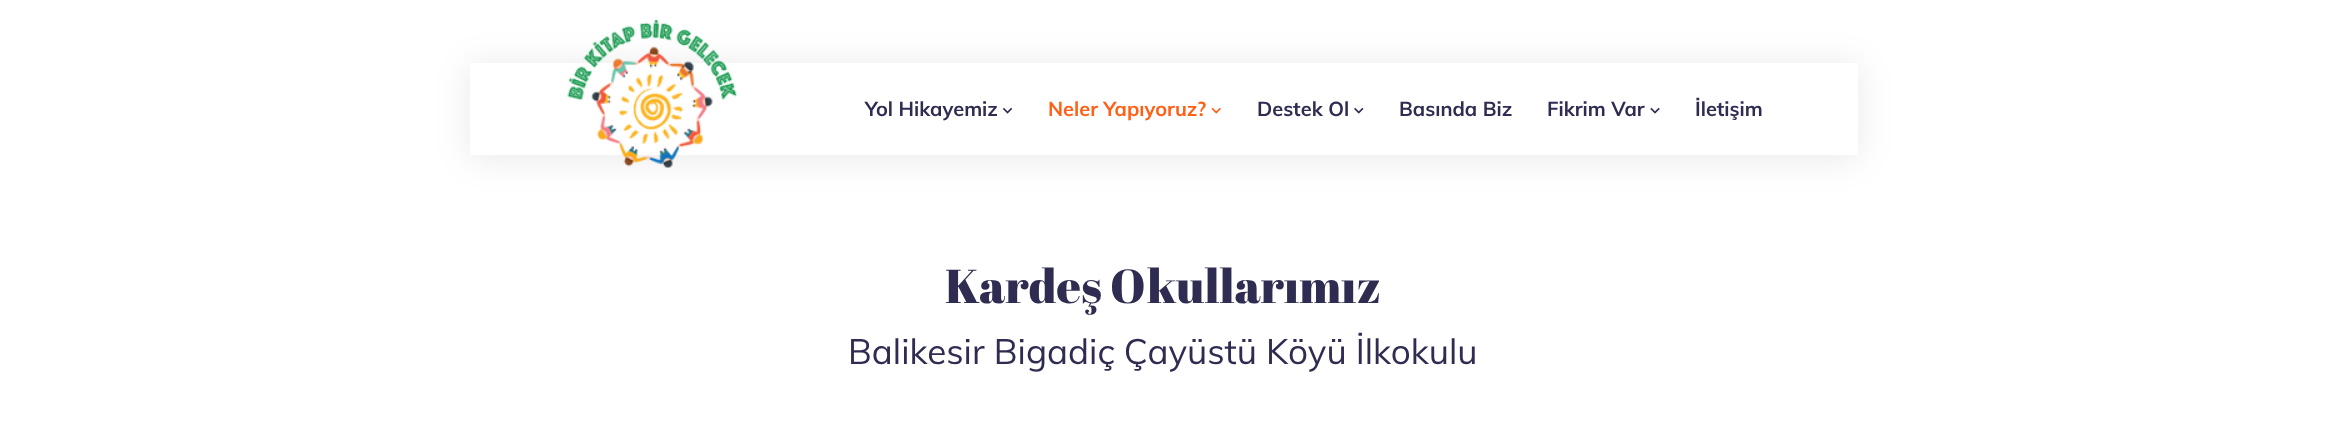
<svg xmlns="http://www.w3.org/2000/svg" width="2326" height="437">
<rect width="100%" height="100%" fill="#fff"/>
<rect x="470" y="65" width="1388" height="93" fill="#00000017" filter="blur(17.5px)"/>
<rect x="470" y="63" width="1388" height="92" fill="#fff"/>
<image x="567" y="19" width="170" height="149" href="media/1.png"/>
<text x="865" y="116" style="font-family:Muli;font-size:20px;font-weight:bold;fill:#2f2c52">Yol Hikayemiz</text>
<image x="1002" y="107" width="11" height="7" href="media/2.png"/>
<text x="1048" y="116" style="font-family:Muli;font-size:20px;font-weight:bold;fill:#ff6015">Neler Yapıyoruz?</text>
<image x="1211" y="107" width="10" height="7" href="media/3.png"/>
<text x="1257" y="116" style="font-family:Muli;font-size:20px;font-weight:bold;fill:#2f2c52">Destek Ol</text>
<image x="1354" y="107" width="10" height="7" href="media/4.png"/>
<text x="1399" y="116" style="font-family:Muli;font-size:20px;font-weight:bold;fill:#2f2c52">Basında Biz</text>
<text x="1547" y="116" style="font-family:Muli;font-size:20px;font-weight:bold;fill:#2f2c52">Fikrim Var</text>
<image x="1650" y="107" width="10" height="7" href="media/5.png"/>
<text x="1695" y="116" style="font-family:Muli;font-size:20px;font-weight:bold;fill:#2f2c52">İletişim</text>
<text x="945" y="303" style="font-family:Abril Fatface;font-size:47.5px;fill:#2f2c52">Kardeş Okullarımız</text>
<text x="848" y="364" style="font-family:Muli;font-size:35px;fill:#2f2c52">Balikesir Bigadiç Çayüstü Köyü İlkokulu</text>
</svg>
